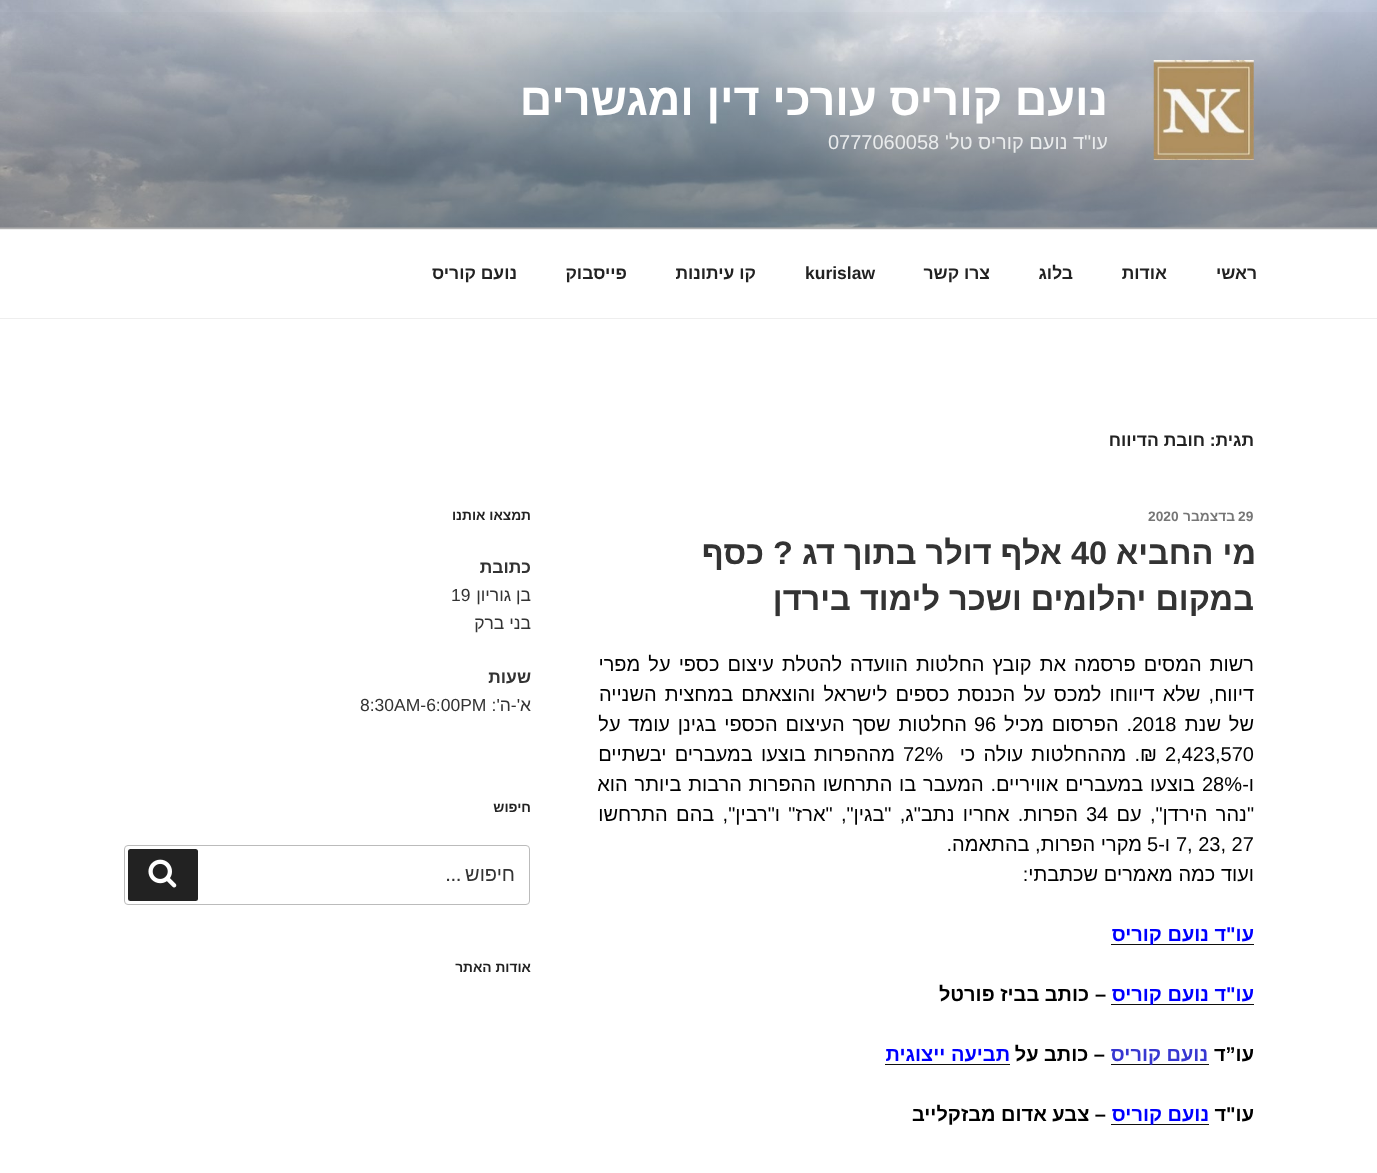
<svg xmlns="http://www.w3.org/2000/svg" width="1377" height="1173">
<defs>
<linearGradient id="g1" gradientUnits="userSpaceOnUse" x1="689" y1="0" x2="689" y2="229"><stop offset="0" stop-color="#000" stop-opacity="0"/><stop offset="0.75" stop-color="#000" stop-opacity="0.3"/><stop offset="1" stop-color="#000" stop-opacity="0.3"/></linearGradient>
</defs>
<rect width="100%" height="100%" fill="#fff"/>
<rect y="227" width="1377" height="2" fill="#fafafa"/>
<image x="0" y="0" width="1377" height="228" href="media/1.png"/>
<rect y="12" width="1377" height="217" fill="url(#g1)"/>
<image x="1153" y="60" width="101" height="100" href="media/2.png"/>
<text x="1108" y="115" style="font-family:Liberation Sans;font-size:45px;font-weight:bold;direction:rtl;fill:#fff">נועם קוריס עורכי דין ומגשרים</text>
<text x="1108" y="149" style="font-family:Liberation Sans;font-size:20px;direction:rtl;fill:#e9ebec">עו"ד נועם קוריס טל'</text>
<text x="828" y="149" style="font-family:Liberation Sans;font-size:20px;fill:#e9ebec">0777060058</text>
<rect y="229" width="1377" height="1" fill="#eee"/>
<rect y="318" width="1377" height="1" fill="#eee"/>
<text x="1257" y="279" style="font-family:Liberation Sans;font-size:17.5px;font-weight:bold;direction:rtl;fill:#222">ראשי</text>
<text x="1167" y="279" style="font-family:Liberation Sans;font-size:17.5px;font-weight:bold;direction:rtl;fill:#222">אודות</text>
<text x="1073" y="279" style="font-family:Liberation Sans;font-size:17.5px;font-weight:bold;direction:rtl;fill:#222">בלוג</text>
<text x="990" y="279" style="font-family:Liberation Sans;font-size:17.5px;font-weight:bold;direction:rtl;fill:#222">צרו קשר</text>
<text x="805" y="279" style="font-family:Liberation Sans;font-size:17.5px;font-weight:bold;fill:#222">kurislaw</text>
<text x="756" y="279" style="font-family:Liberation Sans;font-size:17.5px;font-weight:bold;direction:rtl;fill:#222">קו עיתונות</text>
<text x="627" y="279" style="font-family:Liberation Sans;font-size:17.5px;font-weight:bold;direction:rtl;fill:#222">פייסבוק</text>
<text x="517" y="279" style="font-family:Liberation Sans;font-size:17.5px;font-weight:bold;direction:rtl;fill:#222">נועם קוריס</text>
<text x="1254" y="446" style="font-family:Liberation Sans;font-size:17.5px;font-weight:bold;direction:rtl;fill:#222">תגית:</text>
<text x="1205" y="446" style="font-family:Liberation Sans;font-size:17.5px;font-weight:bold;direction:rtl;fill:#222">חובת הדיווח</text>
<text x="1238" y="521" style="font-family:Liberation Sans;font-size:13.75px;font-weight:bold;fill:#767676">29</text>
<text x="1235" y="521" style="font-family:Liberation Sans;font-size:13.75px;font-weight:bold;direction:rtl;fill:#767676">בדצמבר</text>
<text x="1148" y="521" style="font-family:Liberation Sans;font-size:13.75px;font-weight:bold;fill:#767676">2020</text>
<text x="1256" y="564" style="font-family:Liberation Sans;font-size:32.5px;font-weight:bold;direction:rtl;fill:#333">מי החביא</text>
<text x="1071" y="564" style="font-family:Liberation Sans;font-size:32.5px;font-weight:bold;fill:#333">40</text>
<text x="1062" y="564" style="font-family:Liberation Sans;font-size:32.5px;font-weight:bold;direction:rtl;fill:#333">אלף דולר בתוך דג ? כסף</text>
<text x="1254" y="610" style="font-family:Liberation Sans;font-size:32.5px;font-weight:bold;direction:rtl;fill:#333">במקום יהלומים ושכר לימוד בירדן</text>
<text x="1254" y="671" word-spacing="2.5" style="font-family:Liberation Sans;font-size:20px;direction:rtl;fill:#000">רשות המסים פרסמה את קובץ החלטות הוועדה להטלת עיצום כספי על מפרי</text>
<text x="1254" y="701" word-spacing="2.6" style="font-family:Liberation Sans;font-size:20px;direction:rtl;fill:#000">דיווח, שלא דיווחו למכס על הכנסת כספים לישראל והוצאתם במחצית השנייה</text>
<text x="1254" y="731" word-spacing="2.25" style="font-family:Liberation Sans;font-size:20px;direction:rtl;fill:#000">של שנת</text>
<text x="1132" y="731" style="font-family:Liberation Sans;font-size:20px;fill:#000">2018</text>
<text x="1132" y="731" word-spacing="2.25" style="font-family:Liberation Sans;font-size:20px;direction:rtl;fill:#000">. הפרסום מכיל</text>
<text x="974" y="731" style="font-family:Liberation Sans;font-size:20px;fill:#000">96</text>
<text x="967" y="731" word-spacing="2.25" style="font-family:Liberation Sans;font-size:20px;direction:rtl;fill:#000">החלטות שסך העיצום הכספי בגינן עומד על</text>
<text x="1165" y="761" style="font-family:Liberation Sans;font-size:20px;fill:#000">2,423,570</text>
<text x="1157" y="761" word-spacing="2.6" style="font-family:Liberation Sans;font-size:20px;direction:rtl;fill:#000">₪. מההחלטות עולה כי</text>
<text x="903" y="761" style="font-family:Liberation Sans;font-size:20px;fill:#000">72%</text>
<text x="895" y="761" word-spacing="2.6" style="font-family:Liberation Sans;font-size:20px;direction:rtl;fill:#000">מההפרות בוצעו במעברים יבשתיים</text>
<text x="1254" y="791" style="font-family:Liberation Sans;font-size:20px;direction:rtl;fill:#000">ו-</text>
<text x="1202" y="791" style="font-family:Liberation Sans;font-size:20px;fill:#000">28%</text>
<text x="1195" y="791" word-spacing="1.25" style="font-family:Liberation Sans;font-size:20px;direction:rtl;fill:#000">בוצעו במעברים אוויריים. המעבר בו התרחשו ההפרות הרבות ביותר הוא</text>
<text x="1254" y="821" word-spacing="2.75" style="font-family:Liberation Sans;font-size:20px;direction:rtl;fill:#000">"נהר הירדן", עם</text>
<text x="1086" y="821" style="font-family:Liberation Sans;font-size:20px;fill:#000">34</text>
<text x="1078" y="821" word-spacing="2.75" style="font-family:Liberation Sans;font-size:20px;direction:rtl;fill:#000">הפרות. אחריו נתב"ג, "בגין", "ארז" ו"רבין", בהם התרחשו</text>
<text x="1176" y="851" style="font-family:Liberation Sans;font-size:20px;fill:#000">7, 23, 27</text>
<text x="1170" y="851" style="font-family:Liberation Sans;font-size:20px;direction:rtl;fill:#000">ו-</text>
<text x="1147" y="851" style="font-family:Liberation Sans;font-size:20px;fill:#000">5</text>
<text x="1142" y="851" style="font-family:Liberation Sans;font-size:20px;direction:rtl;fill:#000">מקרי הפרות, בהתאמה.</text>
<text x="1254" y="881" style="font-family:Liberation Sans;font-size:20px;direction:rtl;fill:#000">ועוד כמה מאמרים שכתבתי:</text>
<rect x="1111" y="944" width="143" height="1" fill="#0f0f0f"/>
<text x="1254" y="941" style="font-family:Liberation Sans;font-size:20px;font-weight:bold;direction:rtl;fill:#00f">עו"ד נועם קוריס</text>
<rect x="1111" y="1004" width="143" height="1" fill="#0f0f0f"/>
<text x="1254" y="1001" style="font-family:Liberation Sans;font-size:20px;font-weight:bold;direction:rtl;fill:#00f">עו"ד נועם קוריס</text>
<text x="1095" y="1001" style="font-family:Liberation Sans;font-size:20px;font-weight:bold;fill:#000">–</text>
<text x="1089" y="1001" style="font-family:Liberation Sans;font-size:20px;font-weight:bold;direction:rtl;fill:#000">כותב בביז פורטל</text>
<text x="1254" y="1061" style="font-family:Liberation Sans;font-size:20px;font-weight:bold;direction:rtl;fill:#000">עו”ד</text>
<rect x="1111" y="1064" width="98" height="1" fill="#0f0f0f"/>
<text x="1208" y="1061" style="font-family:Liberation Sans;font-size:20px;font-weight:bold;direction:rtl;fill:#3737d1">נועם קוריס</text>
<text x="1105" y="1061" style="font-family:Liberation Sans;font-size:20px;font-weight:bold;direction:rtl;fill:#000">– כותב על</text>
<text x="1010" y="1061" style="font-family:Liberation Sans;font-size:20px;font-weight:bold;direction:rtl;fill:#00f">תביעה ייצוגית</text>
<rect x="885" y="1064" width="125" height="1" fill="#0f0f0f"/>
<text x="1254" y="1121" style="font-family:Liberation Sans;font-size:20px;font-weight:bold;direction:rtl;fill:#000">עו"ד</text>
<rect x="1111" y="1124" width="98" height="1" fill="#0f0f0f"/>
<text x="1209" y="1121" style="font-family:Liberation Sans;font-size:20px;font-weight:bold;direction:rtl;fill:#00f">נועם קוריס</text>
<text x="1106" y="1121" style="font-family:Liberation Sans;font-size:20px;font-weight:bold;direction:rtl;fill:#000">– צבע אדום מבזקלייב</text>
<text x="531" y="520" style="font-family:Liberation Sans;font-size:13.75px;font-weight:bold;direction:rtl;fill:#222">תמצאו אותנו</text>
<text x="531" y="573" style="font-family:Liberation Sans;font-size:17.5px;font-weight:bold;direction:rtl;fill:#333">כתובת</text>
<text x="531" y="601" style="font-family:Liberation Sans;font-size:17.5px;direction:rtl;fill:#333">בן גוריון</text>
<text x="451" y="601" style="font-family:Liberation Sans;font-size:17.5px;fill:#333">19</text>
<text x="531" y="629" style="font-family:Liberation Sans;font-size:17.5px;direction:rtl;fill:#333">בני ברק</text>
<text x="531" y="683" style="font-family:Liberation Sans;font-size:17.5px;font-weight:bold;direction:rtl;fill:#333">שעות</text>
<text x="531" y="711" style="font-family:Liberation Sans;font-size:17.5px;direction:rtl;fill:#333">א'-ה':</text>
<text x="360" y="711" style="font-family:Liberation Sans;font-size:17.5px;fill:#333">8:30AM-6:00PM</text>
<text x="531" y="812" style="font-family:Liberation Sans;font-size:13.75px;font-weight:bold;direction:rtl;fill:#222">חיפוש</text>
<rect x="124.5" y="845.5" width="405" height="59" rx="3.5" fill="none" stroke="#bbb"/>
<text x="515" y="881" style="font-family:Liberation Sans;font-size:20px;direction:rtl;fill:#333">חיפוש</text>
<text x="461" y="881" style="font-family:Libre Franklin;font-size:20px;direction:rtl;fill:#333">…</text>
<rect x="128" y="849" width="70" height="52" rx="2.5" fill="#222"/>
<image x="148" y="859" width="29" height="29" href="media/3.png"/>
<text x="531" y="972" style="font-family:Liberation Sans;font-size:13.75px;font-weight:bold;direction:rtl;fill:#222">אודות האתר</text>
</svg>
